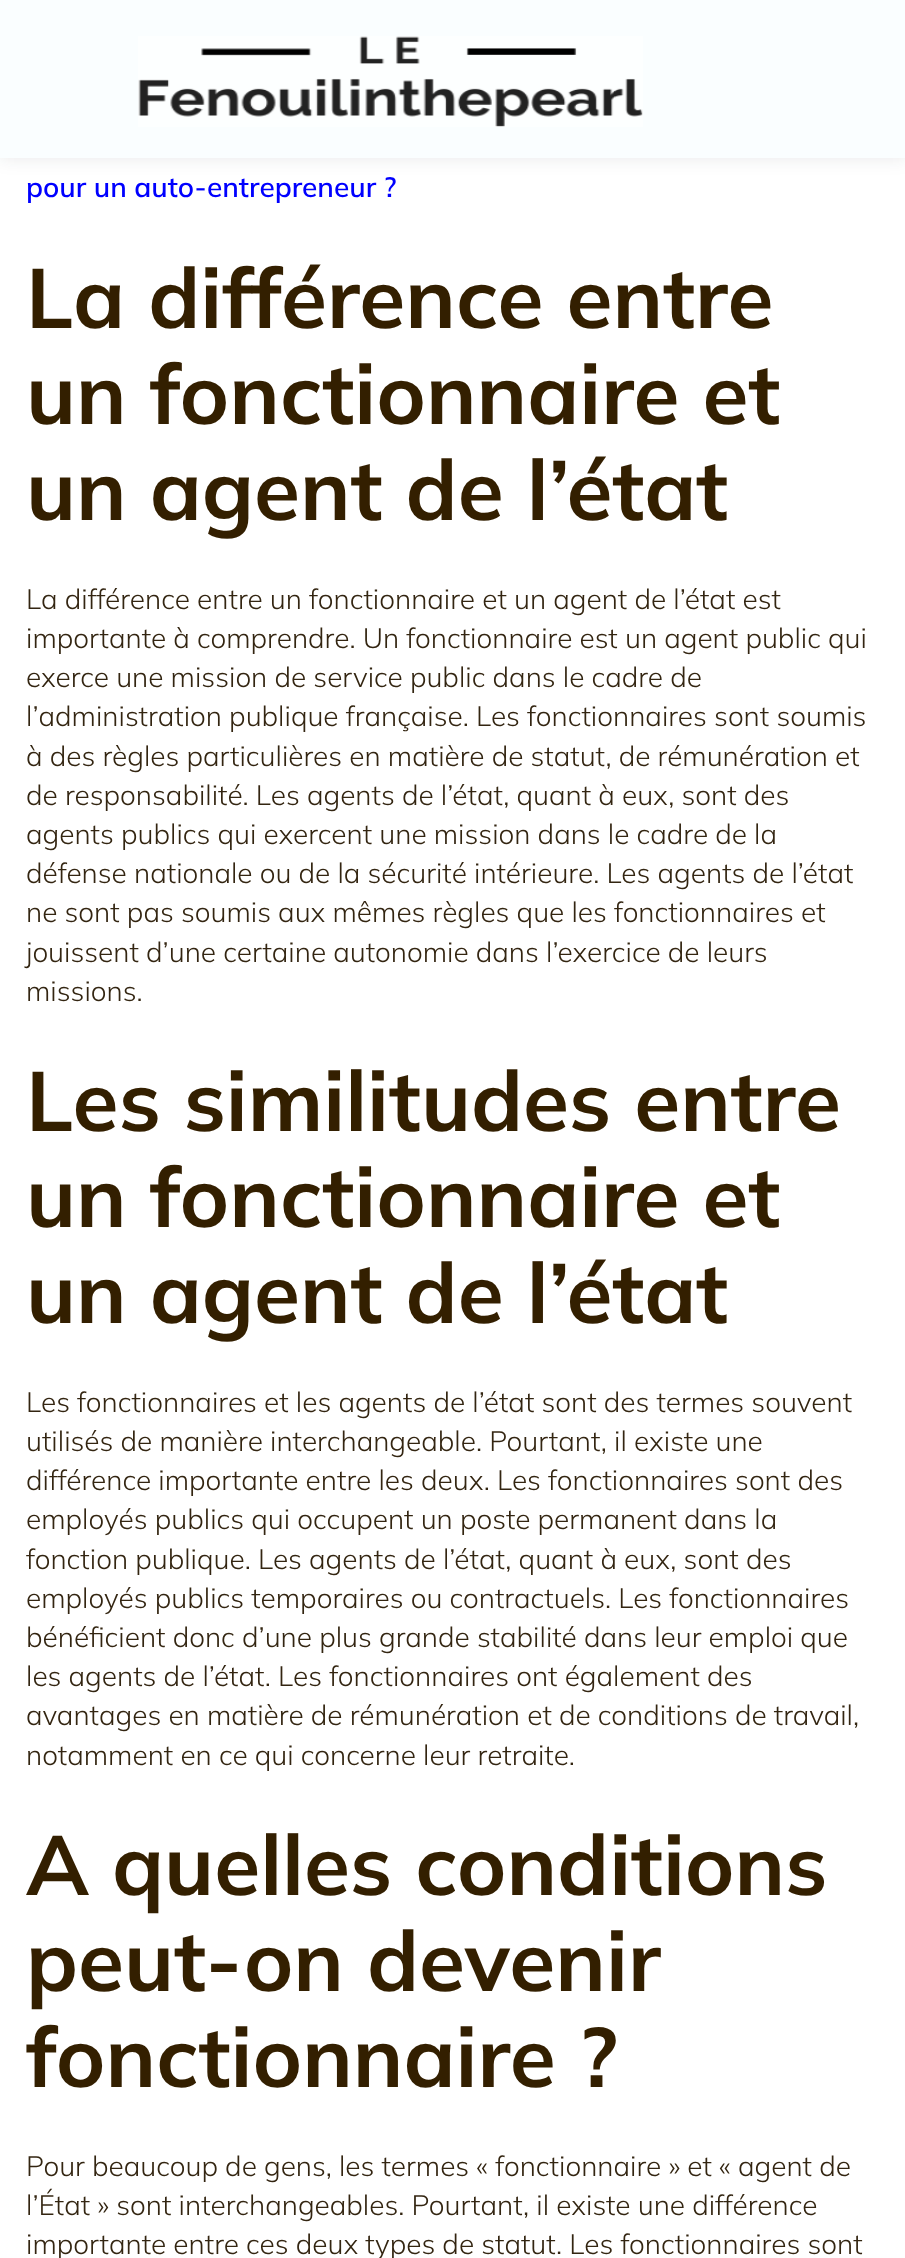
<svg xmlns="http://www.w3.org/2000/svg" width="905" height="2258">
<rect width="100%" height="100%" fill="#fff"/>
<rect width="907" height="158" fill="#1719271a" filter="blur(9px)"/>
<rect width="905" height="158" fill="#fafeff"/>
<image x="138" y="36" width="505" height="91" href="media/1.png"/>
<text x="26" y="197" style="font-family:Mulish;font-size:28px;font-weight:600;fill:#00f">pour un auto-entrepreneur ?</text>
<text x="26" y="328" style="font-family:Mulish;font-size:84px;font-weight:bold;fill:#331f00">La différence entre</text>
<text x="26" y="424" style="font-family:Mulish;font-size:84px;font-weight:bold;fill:#331f00">un fonctionnaire et</text>
<text x="26" y="520" style="font-family:Mulish;font-size:84px;font-weight:bold;fill:#331f00">un agent de l’état</text>
<text x="26" y="609" style="font-family:Mulish;font-size:28px;font-weight:300;fill:#332511">La différence entre un fonctionnaire et un agent de l’état est</text>
<text x="26" y="648" style="font-family:Mulish;font-size:28px;font-weight:300;fill:#332511">importante à comprendre. Un fonctionnaire est un agent public qui</text>
<text x="26" y="687" style="font-family:Mulish;font-size:28px;font-weight:300;fill:#332511">exerce une mission de service public dans le cadre de</text>
<text x="26" y="726" style="font-family:Mulish;font-size:28px;font-weight:300;fill:#332511">l’administration publique française. Les fonctionnaires sont soumis</text>
<text x="26" y="766" style="font-family:Mulish;font-size:28px;font-weight:300;fill:#332511">à des règles particulières en matière de statut, de rémunération et</text>
<text x="26" y="805" style="font-family:Mulish;font-size:28px;font-weight:300;fill:#332511">de responsabilité. Les agents de l’état, quant à eux, sont des</text>
<text x="26" y="844" style="font-family:Mulish;font-size:28px;font-weight:300;fill:#332511">agents publics qui exercent une mission dans le cadre de la</text>
<text x="26" y="883" style="font-family:Mulish;font-size:28px;font-weight:300;fill:#332511">défense nationale ou de la sécurité intérieure. Les agents de l’état</text>
<text x="26" y="922" style="font-family:Mulish;font-size:28px;font-weight:300;fill:#332511">ne sont pas soumis aux mêmes règles que les fonctionnaires et</text>
<text x="26" y="962" style="font-family:Mulish;font-size:28px;font-weight:300;fill:#332511">jouissent d’une certaine autonomie dans l’exercice de leurs</text>
<text x="26" y="1001" style="font-family:Mulish;font-size:28px;font-weight:300;fill:#332511">missions.</text>
<text x="26" y="1131" style="font-family:Mulish;font-size:84px;font-weight:bold;fill:#331f00">Les similitudes entre</text>
<text x="26" y="1227" style="font-family:Mulish;font-size:84px;font-weight:bold;fill:#331f00">un fonctionnaire et</text>
<text x="26" y="1323" style="font-family:Mulish;font-size:84px;font-weight:bold;fill:#331f00">un agent de l’état</text>
<text x="26" y="1412" style="font-family:Mulish;font-size:28px;font-weight:300;fill:#332511">Les fonctionnaires et les agents de l’état sont des termes souvent</text>
<text x="26" y="1451" style="font-family:Mulish;font-size:28px;font-weight:300;fill:#332511">utilisés de manière interchangeable. Pourtant, il existe une</text>
<text x="26" y="1490" style="font-family:Mulish;font-size:28px;font-weight:300;fill:#332511">différence importante entre les deux. Les fonctionnaires sont des</text>
<text x="26" y="1529" style="font-family:Mulish;font-size:28px;font-weight:300;fill:#332511">employés publics qui occupent un poste permanent dans la</text>
<text x="26" y="1569" style="font-family:Mulish;font-size:28px;font-weight:300;fill:#332511">fonction publique. Les agents de l’état, quant à eux, sont des</text>
<text x="26" y="1608" style="font-family:Mulish;font-size:28px;font-weight:300;fill:#332511">employés publics temporaires ou contractuels. Les fonctionnaires</text>
<text x="26" y="1647" style="font-family:Mulish;font-size:28px;font-weight:300;fill:#332511">bénéficient donc d’une plus grande stabilité dans leur emploi que</text>
<text x="26" y="1686" style="font-family:Mulish;font-size:28px;font-weight:300;fill:#332511">les agents de l’état. Les fonctionnaires ont également des</text>
<text x="26" y="1725" style="font-family:Mulish;font-size:28px;font-weight:300;fill:#332511">avantages en matière de rémunération et de conditions de travail,</text>
<text x="26" y="1765" style="font-family:Mulish;font-size:28px;font-weight:300;fill:#332511">notamment en ce qui concerne leur retraite.</text>
<text x="26" y="1895" style="font-family:Mulish;font-size:84px;font-weight:bold;fill:#331f00">A quelles conditions</text>
<text x="26" y="1991" style="font-family:Mulish;font-size:84px;font-weight:bold;fill:#331f00">peut-on devenir</text>
<text x="26" y="2087" style="font-family:Mulish;font-size:84px;font-weight:bold;fill:#331f00">fonctionnaire ?</text>
<text x="26" y="2176" style="font-family:Mulish;font-size:28px;font-weight:300;fill:#332511">Pour beaucoup de gens, les termes « fonctionnaire » et « agent de</text>
<text x="26" y="2215" style="font-family:Mulish;font-size:28px;font-weight:300;fill:#332511">l’État » sont interchangeables. Pourtant, il existe une différence</text>
<text x="26" y="2254" style="font-family:Mulish;font-size:28px;font-weight:300;fill:#332511">importante entre ces deux types de statut. Les fonctionnaires sont</text>
</svg>
